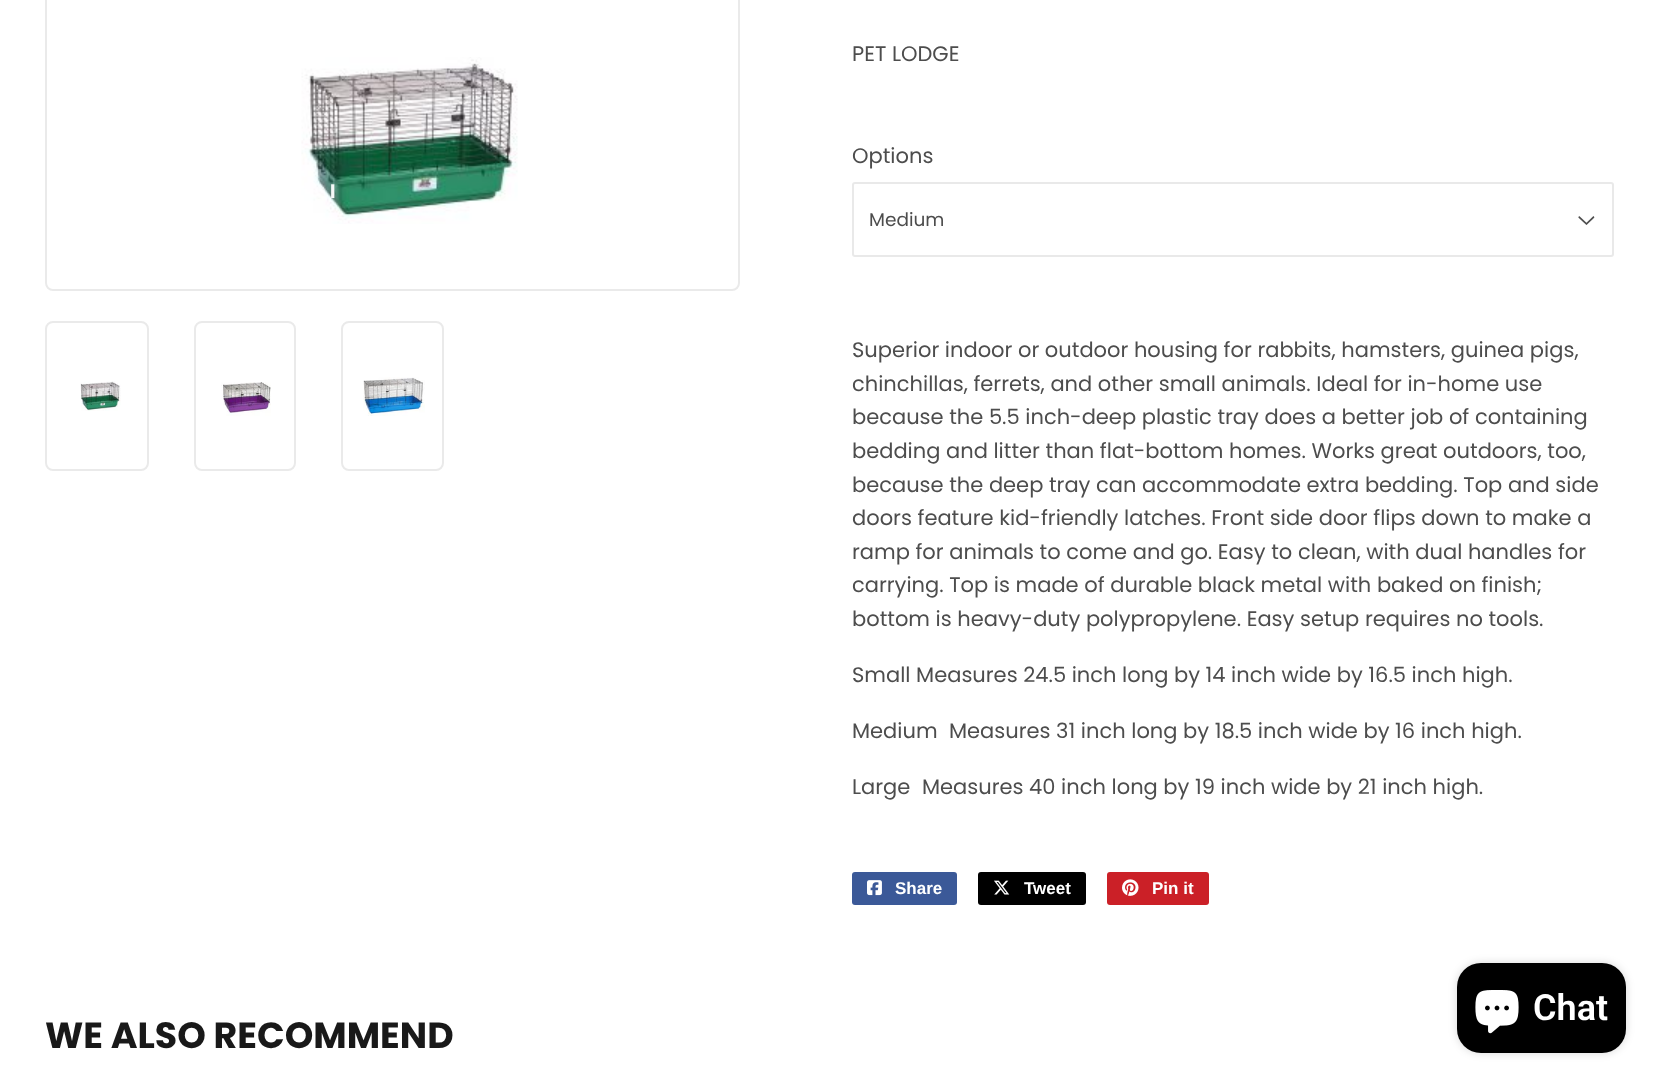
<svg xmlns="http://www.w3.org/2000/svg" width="1658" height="1084">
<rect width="100%" height="100%" fill="#fff"/>
<rect x="46" y="-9" width="693" height="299" rx="7" fill="none" stroke="#eaeaea" stroke-width="2"/>
<image x="301" y="57" width="217" height="167" href="media/1.png"/>
<rect x="46" y="322" width="102" height="148" rx="7" fill="none" stroke="#eaeaea" stroke-width="2"/>
<image x="80" y="381" width="41" height="30" href="media/2.png"/>
<rect x="195" y="322" width="100" height="148" rx="7" fill="none" stroke="#eaeaea" stroke-width="2"/>
<image x="221" y="382" width="50" height="34" href="media/3.png"/>
<rect x="342" y="322" width="101" height="148" rx="7" fill="none" stroke="#eaeaea" stroke-width="2"/>
<image x="363" y="377" width="62" height="39" href="media/4.png"/>
<text x="852" y="61" style="font-family:Poppins;font-size:21px;fill:#4d4d4d">PET LODGE</text>
<text x="852" y="163" style="font-family:Poppins;font-size:21px;fill:#4d4d4d">Options</text>
<image x="1578" y="216" width="17" height="9" href="media/5.png"/>
<rect x="853" y="183" width="760" height="73" rx="2" fill="none" stroke="#e9e9e9" stroke-width="2"/>
<text x="869" y="226" style="font-family:Poppins;font-size:18.5px;fill:#4d4d4d">Medium</text>
<text x="852" y="357" style="font-family:Poppins;font-size:21px;fill:#4d4d4d">Superior indoor or outdoor housing for rabbits, hamsters, guinea pigs,</text>
<text x="852" y="391" style="font-family:Poppins;font-size:21px;fill:#4d4d4d">chinchillas, ferrets, and other small animals. Ideal for in-home use</text>
<text x="852" y="424" style="font-family:Poppins;font-size:21px;fill:#4d4d4d">because the 5.5 inch-deep plastic tray does a better job of containing</text>
<text x="852" y="458" style="font-family:Poppins;font-size:21px;fill:#4d4d4d">bedding and litter than flat-bottom homes. Works great outdoors, too,</text>
<text x="852" y="492" style="font-family:Poppins;font-size:21px;fill:#4d4d4d">because the deep tray can accommodate extra bedding. Top and side</text>
<text x="852" y="525" style="font-family:Poppins;font-size:21px;fill:#4d4d4d">doors feature kid-friendly latches. Front side door flips down to make a</text>
<text x="852" y="559" style="font-family:Poppins;font-size:21px;fill:#4d4d4d">ramp for animals to come and go. Easy to clean, with dual handles for</text>
<text x="852" y="592" style="font-family:Poppins;font-size:21px;fill:#4d4d4d">carrying. Top is made of durable black metal with baked on finish;</text>
<text x="852" y="626" style="font-family:Poppins;font-size:21px;fill:#4d4d4d">bottom is heavy-duty polypropylene. Easy setup requires no tools.</text>
<text x="852" y="682" style="font-family:Poppins;font-size:21px;fill:#4d4d4d">Small Measures 24.5 inch long by 14 inch wide by 16.5 inch high.</text>
<text x="852" y="738" style="font-family:Poppins;font-size:21px;fill:#4d4d4d">Medium</text>
<text x="949" y="738" style="font-family:Poppins;font-size:21px;fill:#4d4d4d">Measures 31 inch long by 18.5 inch wide by 16 inch high.</text>
<text x="852" y="794" style="font-family:Poppins;font-size:21px;fill:#4d4d4d">Large</text>
<text x="922" y="794" style="font-family:Poppins;font-size:21px;fill:#4d4d4d">Measures 40 inch long by 19 inch wide by 21 inch high.</text>
<rect x="852" y="872" width="105" height="33" rx="3" fill="#3b5998"/>
<image x="867" y="880" width="15" height="16" href="media/6.png"/>
<text x="895" y="894" style="font-family:Liberation Sans;font-size:17px;font-weight:bold;fill:#fff">Share</text>
<rect x="978" y="872" width="108" height="33" rx="3" fill="#000"/>
<image x="994" y="880" width="16" height="15" href="media/7.png"/>
<text x="1024" y="894" style="font-family:Liberation Sans;font-size:17px;font-weight:bold;fill:#fff">Tweet</text>
<rect x="1107" y="872" width="102" height="33" rx="3" fill="#cb2027"/>
<image x="1122" y="879" width="17" height="17" href="media/8.png"/>
<text x="1152" y="894" style="font-family:Liberation Sans;font-size:17px;font-weight:bold;fill:#fff">Pin it</text>
<text x="45" y="1048" style="font-family:Poppins;font-size:36.4px;font-weight:bold;fill:#191919">WE ALSO RECOMMEND</text>
<text x="330" y="198" style="font-family:Poppins;font-size:18.5px;font-weight:bold;fill:#f6f9f8">l</text>
<rect x="1457" y="963" width="169" height="90" rx="24" fill="#00000026" filter="blur(4px)"/>
<rect x="1457" y="963" width="169" height="90" rx="24" fill="#000"/>
<image x="1475" y="990" width="44" height="44" href="media/9.png"/>
<text x="1533" y="1020" style="font-family:Roboto;font-size:36px;font-weight:600;fill:#fff">Chat</text>
</svg>
